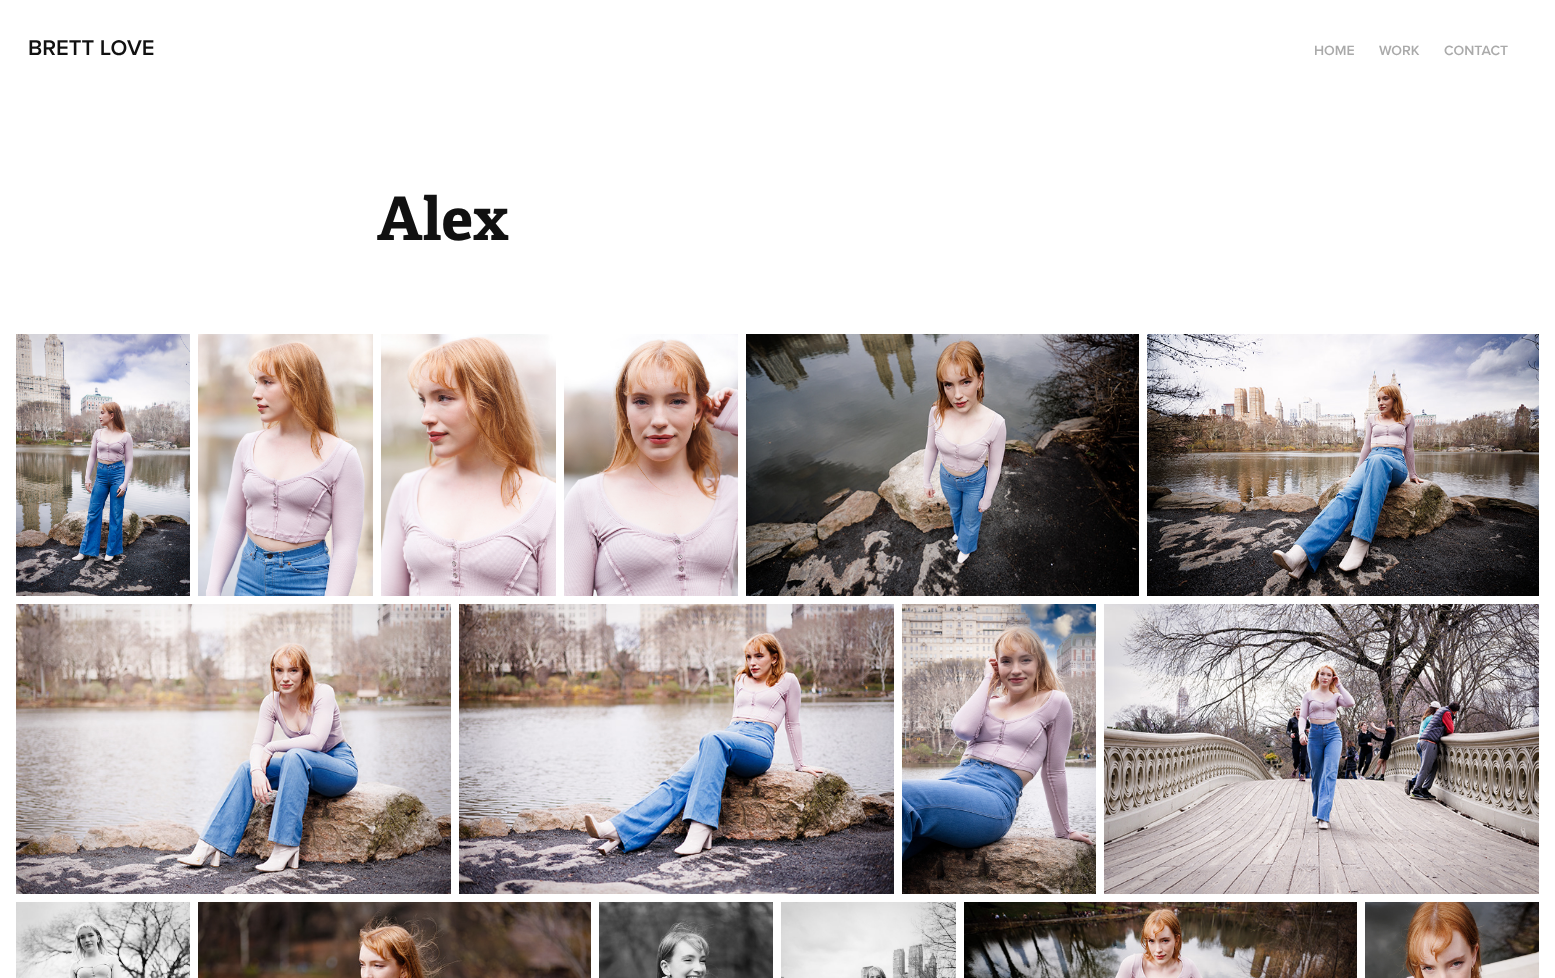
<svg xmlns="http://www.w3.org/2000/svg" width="1555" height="978">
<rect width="100%" height="100%" fill="#fff"/>
<text x="28" y="55" style="font-family:Proxima Nova;font-size:22px;font-weight:600;fill:#111">BRETT LOVE</text>
<text x="1314" y="55" style="font-family:Proxima Nova;font-size:14px;font-weight:600;fill:#aaa">HOME</text>
<text x="1379" y="55" style="font-family:Proxima Nova;font-size:14px;font-weight:600;fill:#aaa">WORK</text>
<text x="1444" y="55" style="font-family:Proxima Nova;font-size:14px;font-weight:600;fill:#aaa">CONTACT</text>
<text x="377" y="240" style="font-family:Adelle;font-size:60px;font-weight:bold;fill:#111">Alex</text>
<image x="16" y="334" width="174" height="262" href="media/1.png"/>
<image x="198" y="334" width="175" height="262" href="media/2.png"/>
<image x="381" y="334" width="175" height="262" href="media/3.png"/>
<image x="564" y="334" width="174" height="262" href="media/4.png"/>
<image x="746" y="334" width="393" height="262" href="media/5.png"/>
<image x="1147" y="334" width="392" height="262" href="media/6.png"/>
<image x="16" y="604" width="435" height="290" href="media/7.png"/>
<image x="459" y="604" width="435" height="290" href="media/8.png"/>
<image x="902" y="604" width="194" height="290" href="media/9.png"/>
<image x="1104" y="604" width="435" height="290" href="media/10.png"/>
<image x="16" y="902" width="174" height="76" href="media/11.png"/>
<image x="198" y="902" width="393" height="76" href="media/12.png"/>
<image x="599" y="902" width="174" height="76" href="media/13.png"/>
<image x="781" y="902" width="175" height="76" href="media/14.png"/>
<image x="964" y="902" width="393" height="76" href="media/15.png"/>
<image x="1365" y="902" width="174" height="76" href="media/16.png"/>
</svg>
